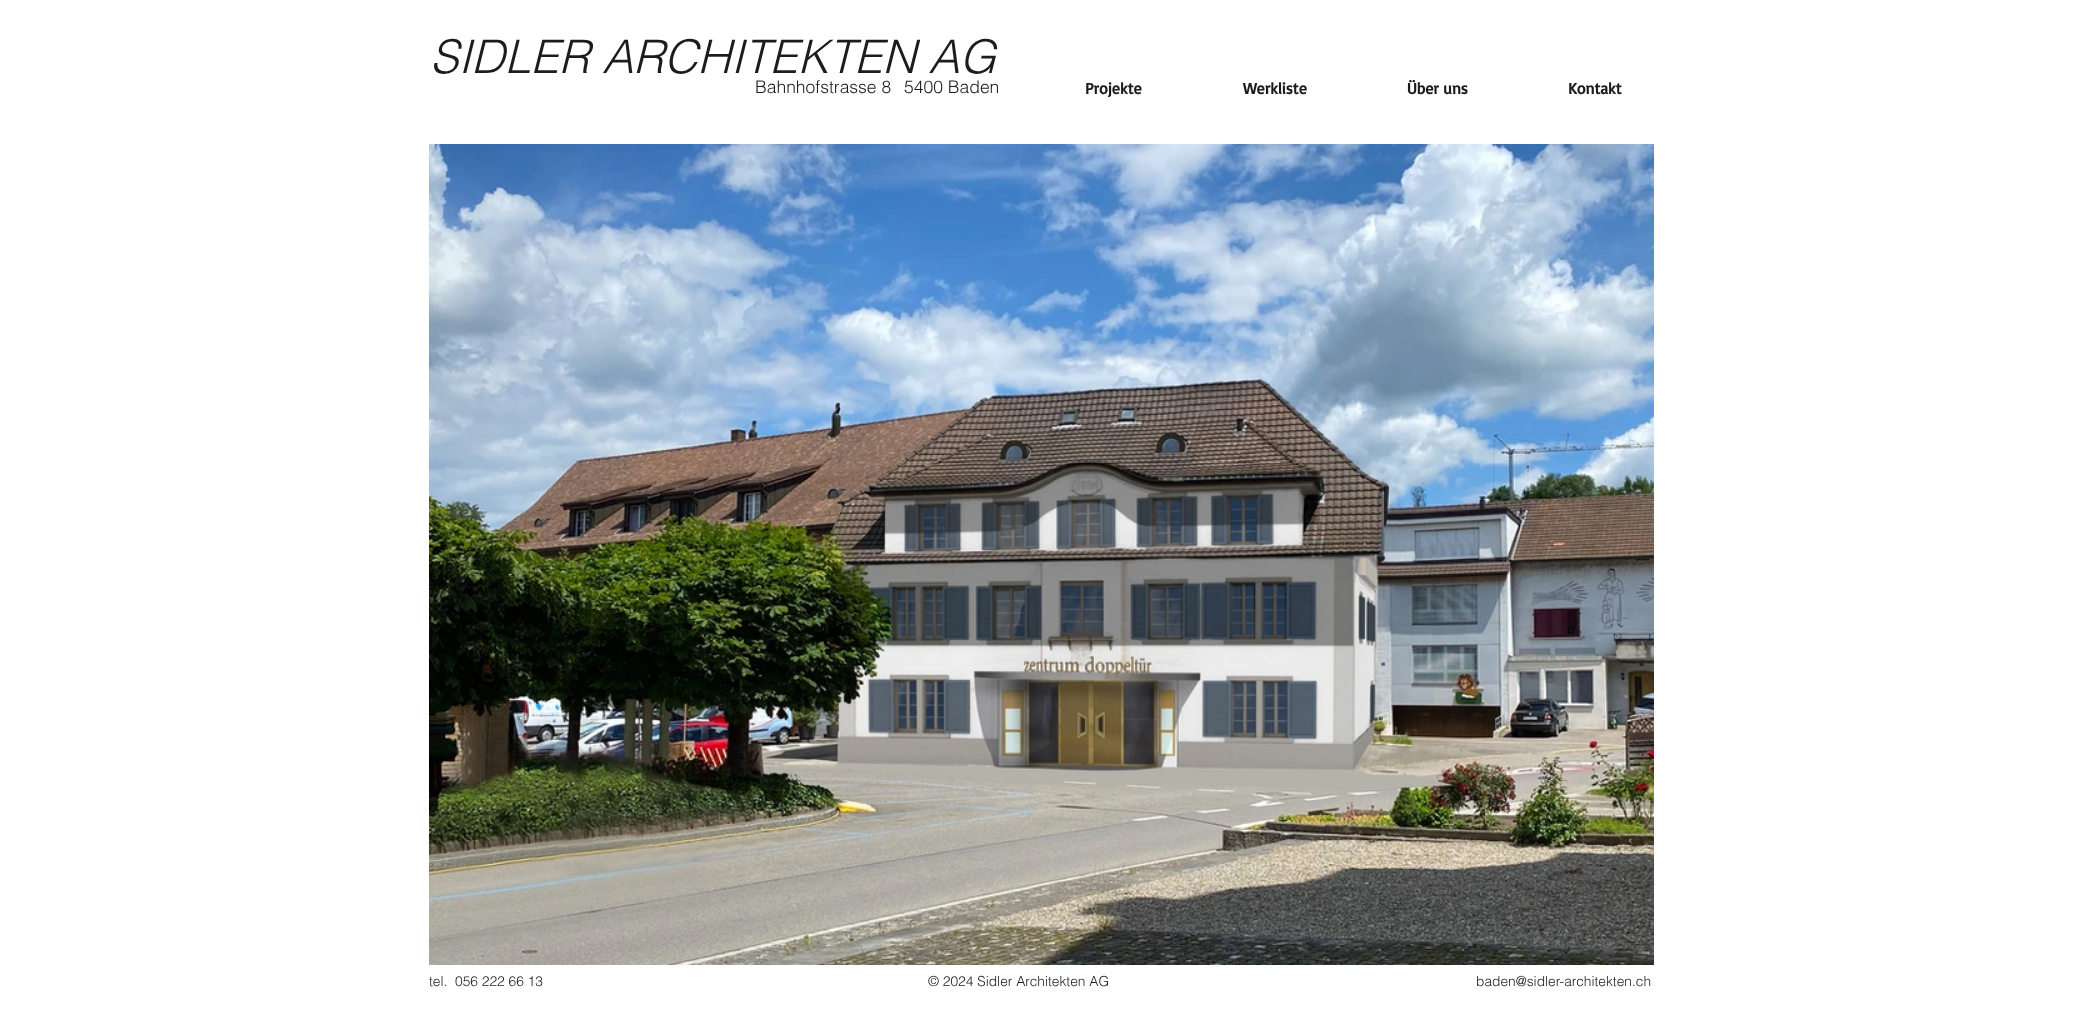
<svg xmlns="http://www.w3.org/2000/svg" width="2082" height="1013">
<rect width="100%" height="100%" fill="#fff"/>
<text x="430" y="73" style="font-family:helvetica;font-size:46.25px;font-weight:300;font-style:italic;fill:#1c1c1c">SIDLER ARCHITEKTEN AG</text>
<text x="755" y="93" style="font-family:helvetica;font-size:17.5px;font-weight:300;fill:#1c1c1c">Bahnhofstrasse 8</text>
<text x="904" y="93" style="font-family:helvetica;font-size:17.5px;font-weight:300;fill:#1c1c1c">5400 Baden</text>
<text x="1085" y="94" style="font-family:Basic;font-size:16px;font-weight:bold;fill:#1c1c1c">Projekte</text>
<text x="1243" y="94" style="font-family:Basic;font-size:16px;font-weight:bold;fill:#1c1c1c">Werkliste</text>
<text x="1407" y="94" style="font-family:Basic;font-size:16px;font-weight:bold;fill:#1c1c1c">Über uns</text>
<text x="1568" y="94" style="font-family:Basic;font-size:16px;font-weight:bold;fill:#1c1c1c">Kontakt</text>
<image x="429" y="144" width="1225" height="821" href="media/1.png"/>
<text x="429" y="986" style="font-family:helvetica;font-size:13.75px;font-weight:300;fill:#1c1c1c" xml:space="preserve">tel.  056 222 66 13</text>
<text x="928" y="986" style="font-family:helvetica;font-size:13.75px;font-weight:300;fill:#1c1c1c">© 2024 Sidler Architekten AG</text>
<text x="1476" y="986" style="font-family:helvetica;font-size:13.75px;font-weight:300;fill:#1c1c1c">baden@sidler-architekten.ch</text>
</svg>
